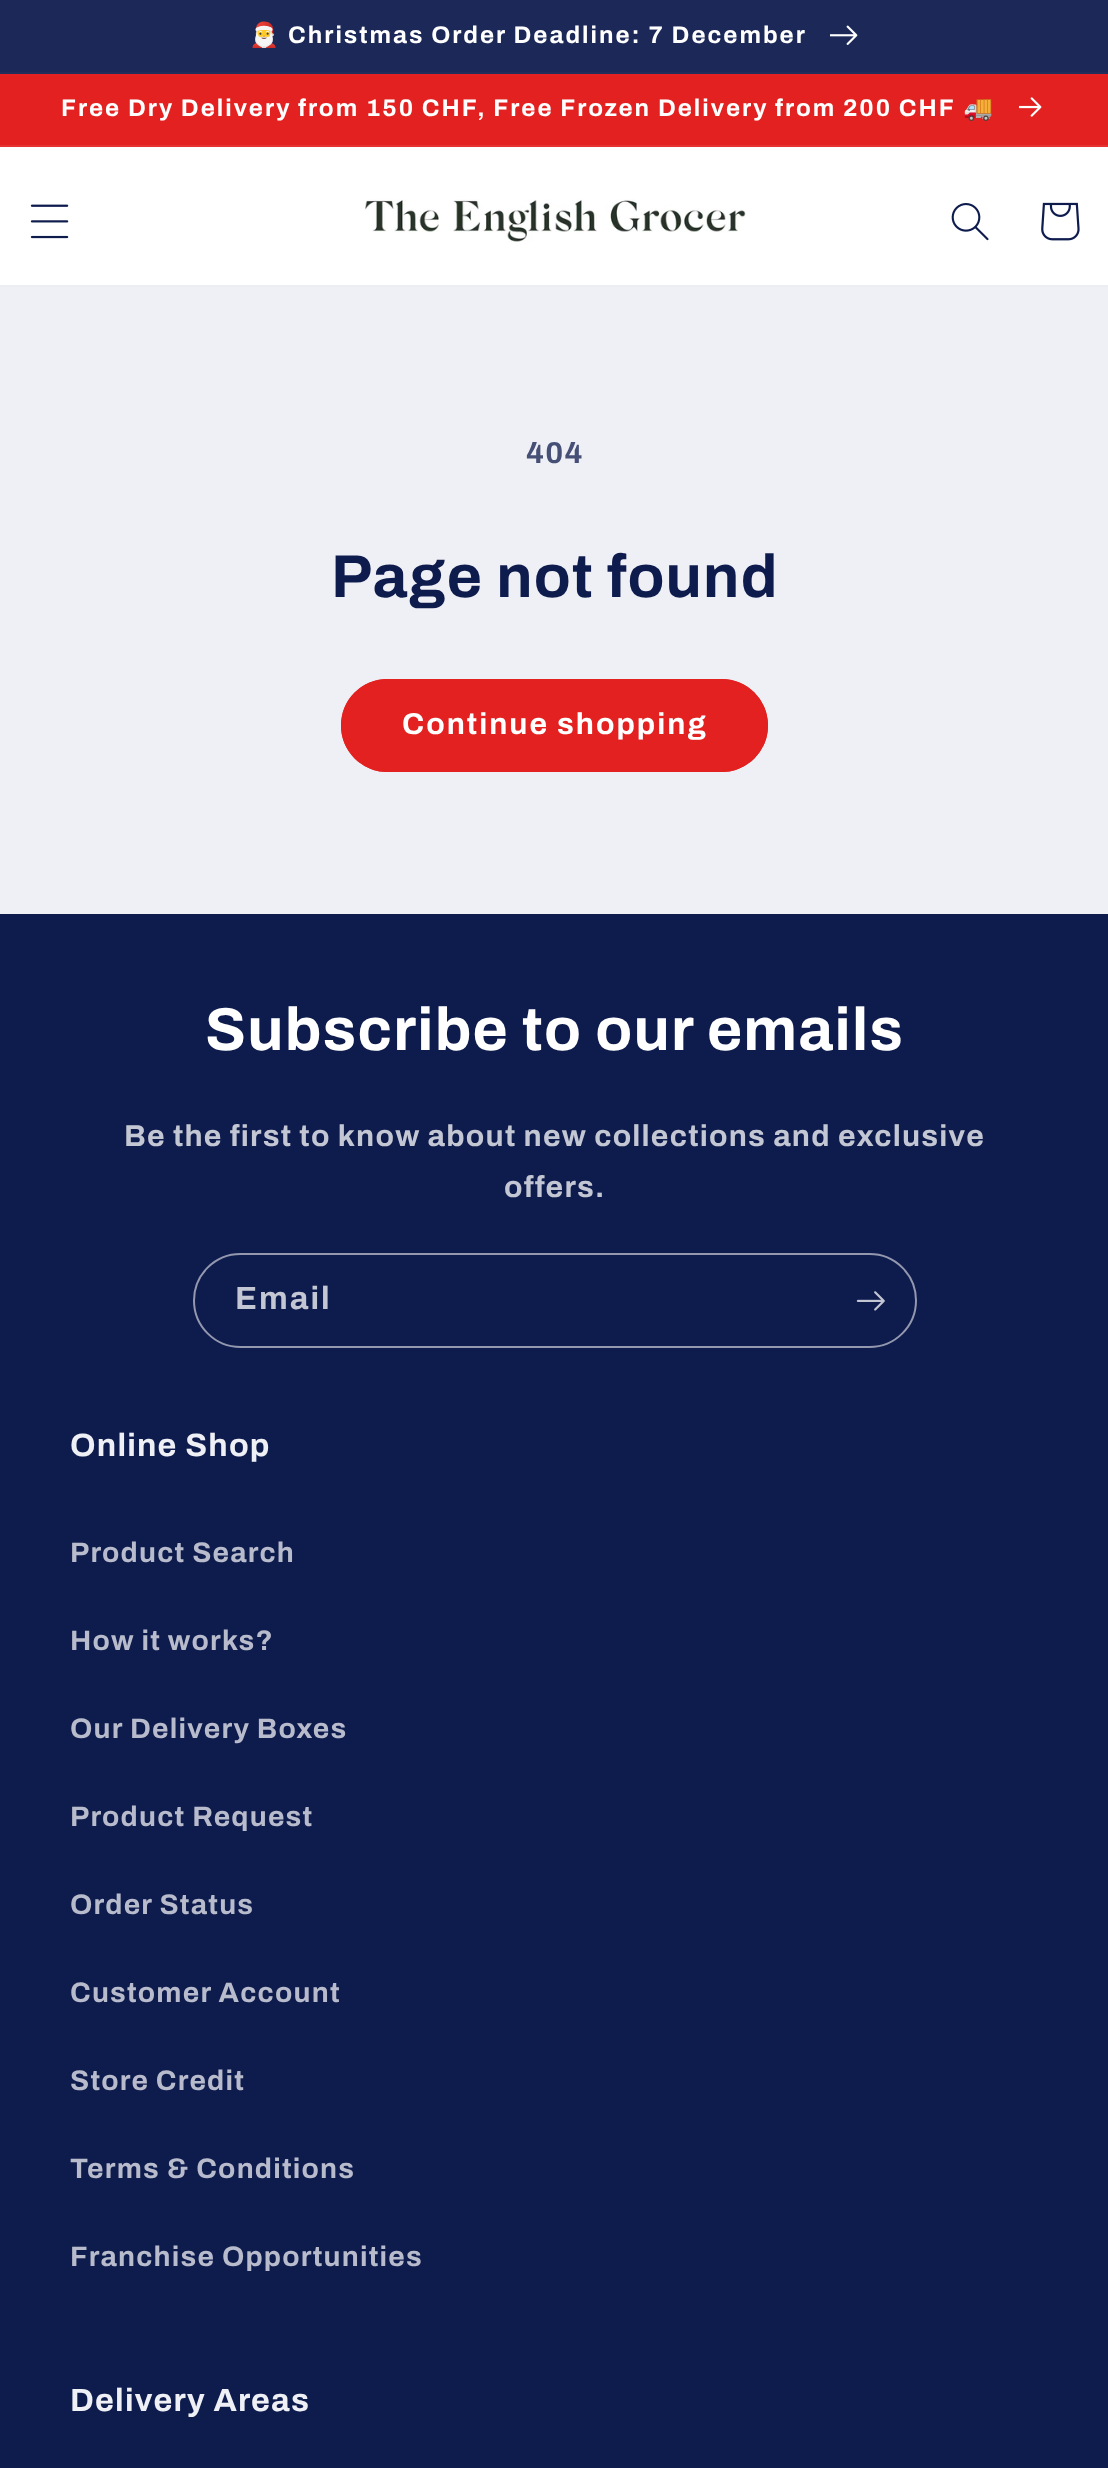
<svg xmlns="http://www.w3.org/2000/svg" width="1108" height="2468">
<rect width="100%" height="100%" fill="#eff0f5"/>
<rect y="72" width="1108" height="2" fill="#212d5b"/>
<rect width="1108" height="72" fill="#1c2958"/>
<text x="249" y="43" style="font-family:Noto Color Emoji;font-size:24.15px;font-weight:bold;letter-spacing:2px;fill:#fff">🎅</text>
<text x="288" y="43" style="font-family:Archivo;font-size:24.15px;font-weight:bold;letter-spacing:2px;fill:#fff">Christmas Order Deadline: 7 December</text>
<image x="830" y="25" width="28" height="20" href="media/1.png"/>
<rect y="74" width="1108" height="71" fill="#e22120"/>
<rect y="145" width="1108" height="2" fill="#e43332"/>
<text x="61" y="116" style="font-family:Archivo;font-size:24.15px;font-weight:bold;letter-spacing:2px;fill:#fff">Free Dry Delivery from 150 CHF, Free Frozen Delivery from 200 CHF</text>
<text x="963" y="116" style="font-family:Noto Color Emoji;font-size:24.15px;font-weight:bold;letter-spacing:2px;fill:#fff">🚚</text>
<image x="1019" y="97" width="23" height="20" href="media/2.png"/>
<rect y="147" width="1108" height="138" fill="#fff"/>
<rect y="285" width="1108" height="2" fill="#ecedf1"/>
<image x="30" y="204" width="39" height="35" href="media/3.png"/>
<image x="365" y="199" width="381" height="43" href="media/4.png"/>
<image x="951" y="203" width="38" height="38" href="media/5.png"/>
<image x="1041" y="202" width="39" height="39" href="media/6.png"/>
<text x="526" y="463" style="font-family:Archivo;font-size:30.2px;font-weight:bold;letter-spacing:1.2px;fill:#465077">404</text>
<text x="331" y="597" style="font-family:Archivo;font-size:60.4px;font-weight:bold;letter-spacing:1.2px;fill:#0e1b4d">Page not found</text>
<rect x="341" y="679" width="427" height="93" rx="46.5" fill="#e22120"/>
<rect x="342" y="680" width="425" height="91" rx="45.5" fill="none" stroke="#e22120" stroke-width="2"/>
<text x="402" y="734" style="font-family:Archivo;font-size:30.2px;font-weight:bold;letter-spacing:2px;fill:#fff">Continue shopping</text>
<rect y="914" width="1108" height="1554" fill="#0e1b4d"/>
<text x="205" y="1050" style="font-family:Archivo;font-size:60.4px;font-weight:bold;letter-spacing:1.2px;fill:#fff">Subscribe to our emails</text>
<text x="124" y="1146" style="font-family:Archivo;font-size:30.2px;font-weight:bold;letter-spacing:1.2px;fill:#c3c6d3">Be the first to know about new collections and exclusive</text>
<text x="504" y="1197" style="font-family:Archivo;font-size:30.2px;font-weight:bold;letter-spacing:1.2px;fill:#c3c6d3">offers.</text>
<rect x="194" y="1254" width="722" height="93" rx="46.5" fill="none" stroke="#9398af" stroke-width="2"/>
<text x="235" y="1309" style="font-family:Archivo;font-size:32.25px;font-weight:bold;letter-spacing:2px;fill:#c3c6d3">Email</text>
<image x="856" y="1291" width="29" height="20" href="media/7.png"/>
<text x="70" y="1456" style="font-family:Archivo;font-size:32.25px;font-weight:bold;letter-spacing:1.2px;fill:#eff0f5">Online Shop</text>
<text x="70" y="1562" style="font-family:Archivo;font-size:28.25px;font-weight:bold;letter-spacing:1.2px;fill:#b7bbcb">Product Search</text>
<text x="70" y="1650" style="font-family:Archivo;font-size:28.25px;font-weight:bold;letter-spacing:1.2px;fill:#b7bbcb">How it works?</text>
<text x="70" y="1738" style="font-family:Archivo;font-size:28.25px;font-weight:bold;letter-spacing:1.2px;fill:#b7bbcb">Our Delivery Boxes</text>
<text x="70" y="1826" style="font-family:Archivo;font-size:28.25px;font-weight:bold;letter-spacing:1.2px;fill:#b7bbcb">Product Request</text>
<text x="70" y="1914" style="font-family:Archivo;font-size:28.25px;font-weight:bold;letter-spacing:1.2px;fill:#b7bbcb">Order Status</text>
<text x="70" y="2002" style="font-family:Archivo;font-size:28.25px;font-weight:bold;letter-spacing:1.2px;fill:#b7bbcb">Customer Account</text>
<text x="70" y="2090" style="font-family:Archivo;font-size:28.25px;font-weight:bold;letter-spacing:1.2px;fill:#b7bbcb">Store Credit</text>
<text x="70" y="2178" style="font-family:Archivo;font-size:28.25px;font-weight:bold;letter-spacing:1.2px;fill:#b7bbcb">Terms &amp; Conditions</text>
<text x="70" y="2266" style="font-family:Archivo;font-size:28.25px;font-weight:bold;letter-spacing:1.2px;fill:#b7bbcb">Franchise Opportunities</text>
<text x="70" y="2411" style="font-family:Archivo;font-size:32.25px;font-weight:bold;letter-spacing:1.2px;fill:#eff0f5">Delivery Areas</text>
</svg>
